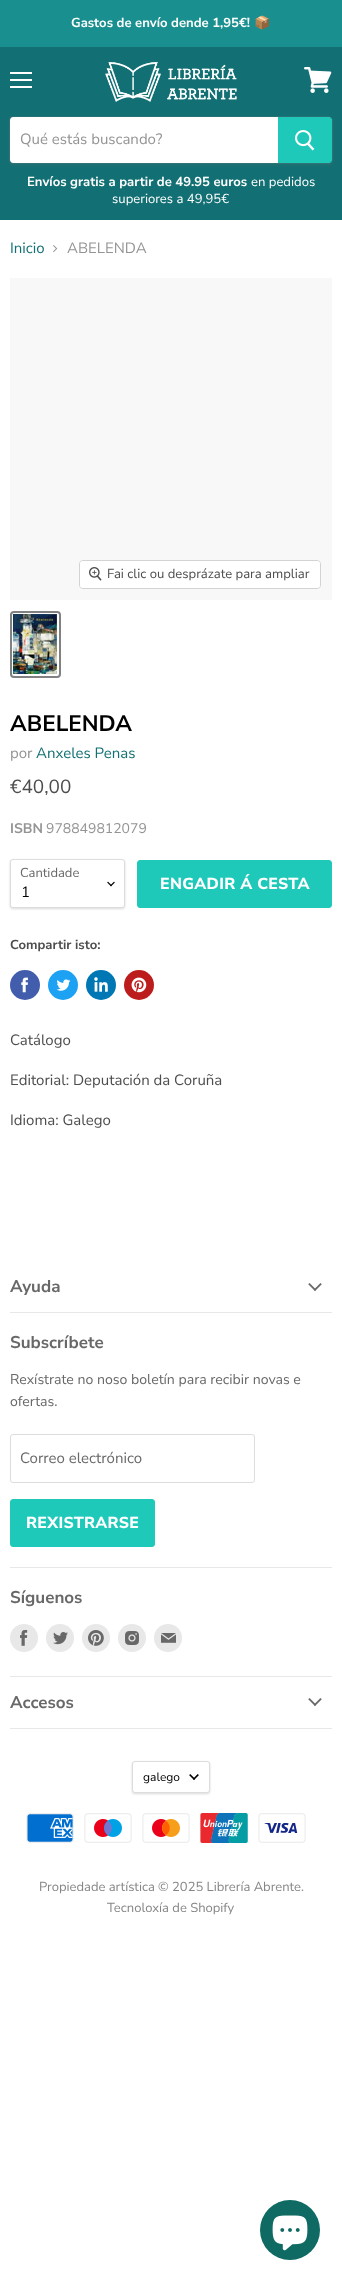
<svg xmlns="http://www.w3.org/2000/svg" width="342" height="2281">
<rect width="100%" height="100%" fill="#fff"/>
<rect width="342" height="47" fill="#198f8f"/>
<text x="71" y="27" style="font-family:Nunito Sans;font-size:13.1px;font-weight:bold;fill:#fff">Gastos de envío dende 1,95€!</text>
<text x="254" y="27" style="font-family:Noto Color Emoji;font-size:13.1px;font-weight:bold;fill:#fff">📦</text>
<rect y="47" width="342" height="173" fill="#126f73"/>
<rect x="10" y="72" width="22" height="2" fill="#fff"/>
<rect x="10" y="79" width="22" height="2" fill="#fff"/>
<rect x="10" y="86" width="22" height="2" fill="#fff"/>
<image x="304" y="67" width="28" height="26" href="media/1.png"/>
<image x="105" y="62" width="132" height="40" href="media/2.png"/>
<rect x="9" y="118" width="324" height="48" rx="4" fill="#8080801c" filter="blur(1.5px)"/>
<rect x="9.5" y="116.5" width="323" height="47" rx="3.5" fill="none" stroke="#80808033"/>
<path d="M13 117h265v46h-265c-1.5 0-3-1.5-3-3v-40c0-1.5 1.5-3 3-3z" fill="#fff"/>
<text x="20" y="144" style="font-family:Nunito Sans;font-size:15px;fill:#949494">Qué estás buscando?</text>
<path d="M278.5 117.5h50.5c1.5 0 2.5 1 2.5 2.5v40c0 1.5-1 2.5-2.5 2.5h-50.5z" fill="#1fc9ba" stroke="#1fc9ba"/>
<image x="295" y="130" width="20" height="21" href="media/3.png"/>
<text x="27" y="186" style="font-family:Nunito Sans;font-size:13.1px;font-weight:bold;fill:#fff">Envíos gratis a partir de 49.95 euros</text>
<text x="251" y="186" style="font-family:Nunito Sans;font-size:13.1px;fill:#fff">en pedidos</text>
<text x="112" y="203" style="font-family:Nunito Sans;font-size:13.1px;fill:#fff">superiores a 49,95€</text>
<text x="10" y="253" style="font-family:Nunito Sans;font-size:15px;fill:#126f73">Inicio</text>
<image x="53" y="245" width="5" height="8" href="media/4.png"/>
<text x="67" y="253" style="font-family:Nunito Sans;font-size:15px;fill:#949494">ABELENDA</text>
<rect x="10" y="278" width="322" height="322" fill="#f8f8f8"/>
<rect x="79.5" y="560.5" width="241" height="28" rx="3.5" fill="none" stroke="#d3d3d3"/>
<rect x="80" y="561" width="240" height="27" rx="3" fill="#ffffffe6"/>
<image x="89" y="567" width="13" height="14" href="media/5.png"/>
<text x="107" y="578" style="font-family:Nunito Sans;font-size:13.1px;fill:#4d4d4d">Fai clic ou desprázate para ampliar</text>
<rect x="11" y="612" width="49" height="65" rx="3" fill="none" stroke="#818181" stroke-width="2"/>
<image x="13" y="614" width="44" height="60" href="media/6.png"/>
<text x="10" y="731" style="font-family:Nunito Sans;font-size:22.5px;font-weight:bold;fill:#000">ABELENDA</text>
<text x="10" y="758" style="font-family:Nunito Sans;font-size:15px;fill:#949494">por</text>
<text x="36" y="758" style="font-family:Nunito Sans;font-size:15px;fill:#126f73">Anxeles Penas</text>
<text x="10" y="793" style="font-family:Nunito Sans;font-size:19px;fill:#4d4d4d">€40,00</text>
<text x="10" y="833" style="font-family:Nunito Sans;font-size:14px;font-weight:bold;fill:#949494">ISBN</text>
<text x="46" y="833" style="font-family:Nunito Sans;font-size:14px;fill:#949494">978849812079</text>
<rect x="10" y="860" width="115" height="49" rx="3" fill="#00000026" filter="blur(1px)"/>
<rect x="10.5" y="859.5" width="114" height="48" rx="2.5" fill="#fff" stroke="#ddd"/>
<text x="20" y="877" style="font-family:Nunito Sans;font-size:13px;fill:#686868">Cantidade</text>
<image x="107" y="881" width="8" height="6" href="media/7.png"/>
<text x="21" y="897" style="font-family:Nunito Sans;font-size:15px;fill:#000">1</text>
<rect x="137.5" y="860.5" width="194" height="47" rx="2.5" fill="#1fc9ba" stroke="#1fc9ba"/>
<text x="160" y="889" style="font-family:Nunito Sans;font-size:15.9px;font-weight:800;letter-spacing:0.3px;fill:#fff">ENGADIR Á CESTA</text>
<text x="10" y="949" style="font-family:Nunito Sans;font-size:13.1px;font-weight:bold;fill:#4d4d4d">Compartir isto:</text>
<circle cx="25" cy="985" r="15" fill="#425dab"/>
<image x="21" y="977" width="7" height="16" href="media/8.png"/>
<circle cx="63" cy="985" r="15" fill="#1da1f2"/>
<image x="56" y="979" width="15" height="12" href="media/9.png"/>
<circle cx="101" cy="985" r="15" fill="#0077b5"/>
<image x="94" y="977" width="14" height="15" href="media/10.png"/>
<circle cx="139" cy="985" r="15" fill="#bd1c1c"/>
<image x="131" y="977" width="16" height="16" href="media/11.png"/>
<text x="10" y="1045" style="font-family:Nunito Sans;font-size:15px;fill:#4d4d4d">Catálogo</text>
<text x="10" y="1085" style="font-family:Nunito Sans;font-size:15px;fill:#4d4d4d">Editorial: Deputación da Coruña</text>
<text x="10" y="1125" style="font-family:Nunito Sans;font-size:15px;fill:#4d4d4d">Idioma: Galego</text>
<rect x="10" y="1312" width="322" height="1" fill="#e8e8e8"/>
<text x="10" y="1292" style="font-family:Nunito Sans;font-size:17px;font-weight:bold;fill:#686868">Ayuda</text>
<image x="308" y="1283" width="14" height="8" href="media/12.png"/>
<rect x="10" y="1567" width="322" height="1" fill="#e8e8e8"/>
<text x="10" y="1348" style="font-family:Nunito Sans;font-size:17px;font-weight:bold;fill:#686868">Subscríbete</text>
<text x="10" y="1384" style="font-family:Nunito Sans;font-size:14.1px;fill:#686868">Rexístrate no noso boletín para recibir novas e</text>
<text x="10" y="1406" style="font-family:Nunito Sans;font-size:14.1px;fill:#686868">ofertas.</text>
<rect x="10.5" y="1434.5" width="244" height="48" rx="2.5" fill="none" stroke="#ddd"/>
<text x="20" y="1463" style="font-family:Nunito Sans;font-size:15px;fill:#686868">Correo electrónico</text>
<rect x="10.5" y="1499.5" width="144" height="47" rx="2.5" fill="#1fc9ba" stroke="#1fc9ba"/>
<text x="26" y="1528" style="font-family:Nunito Sans;font-size:15.9px;font-weight:800;letter-spacing:0.3px;fill:#fff">REXISTRARSE</text>
<rect x="10" y="1676" width="322" height="1" fill="#e8e8e8"/>
<text x="10" y="1603" style="font-family:Nunito Sans;font-size:17px;font-weight:bold;fill:#686868">Síguenos</text>
<circle cx="24" cy="1638" r="14" fill="#e8e8e8"/>
<image x="20" y="1630" width="8" height="16" href="media/13.png"/>
<circle cx="60" cy="1638" r="14" fill="#e8e8e8"/>
<image x="53" y="1632" width="15" height="13" href="media/14.png"/>
<circle cx="96" cy="1638" r="14" fill="#e8e8e8"/>
<image x="88" y="1630" width="16" height="16" href="media/15.png"/>
<circle cx="132" cy="1638" r="14" fill="#e8e8e8"/>
<image x="125" y="1631" width="14" height="14" href="media/16.png"/>
<circle cx="168" cy="1638" r="14" fill="#e8e8e8"/>
<image x="161" y="1633" width="15" height="10" href="media/17.png"/>
<rect x="10" y="1728" width="322" height="1" fill="#e8e8e8"/>
<text x="10" y="1708" style="font-family:Nunito Sans;font-size:17px;font-weight:bold;fill:#686868">Accesos</text>
<image x="308" y="1698" width="14" height="8" href="media/12.png"/>
<rect x="132" y="1762" width="78" height="32" rx="3" fill="#00000026" filter="blur(1px)"/>
<rect x="132.5" y="1761.5" width="77" height="31" rx="2.5" fill="#fff" stroke="#ddd"/>
<text x="143" y="1781" style="font-family:Nunito Sans;font-size:12px;fill:#000">galego</text>
<image x="189" y="1774" width="10" height="6" href="media/18.png"/>
<image x="26" y="1813" width="48" height="30" href="media/19.png"/>
<image x="84" y="1813" width="48" height="30" href="media/20.png"/>
<image x="142" y="1813" width="48" height="30" href="media/21.png"/>
<image x="200" y="1813" width="48" height="30" href="media/22.png"/>
<image x="258" y="1813" width="48" height="30" href="media/23.png"/>
<text x="39" y="1891" style="font-family:Nunito Sans;font-size:13px;fill:#868686">Propiedade artística © 2025 Librería Abrente.</text>
<text x="107" y="1912" style="font-family:Nunito Sans;font-size:13px;fill:#868686">Tecnoloxía de Shopify</text>
<circle cx="290" cy="2230" r="30" fill="#0e6a63"/>
<image x="272" y="2215" width="36" height="36" href="media/24.png"/>
</svg>
